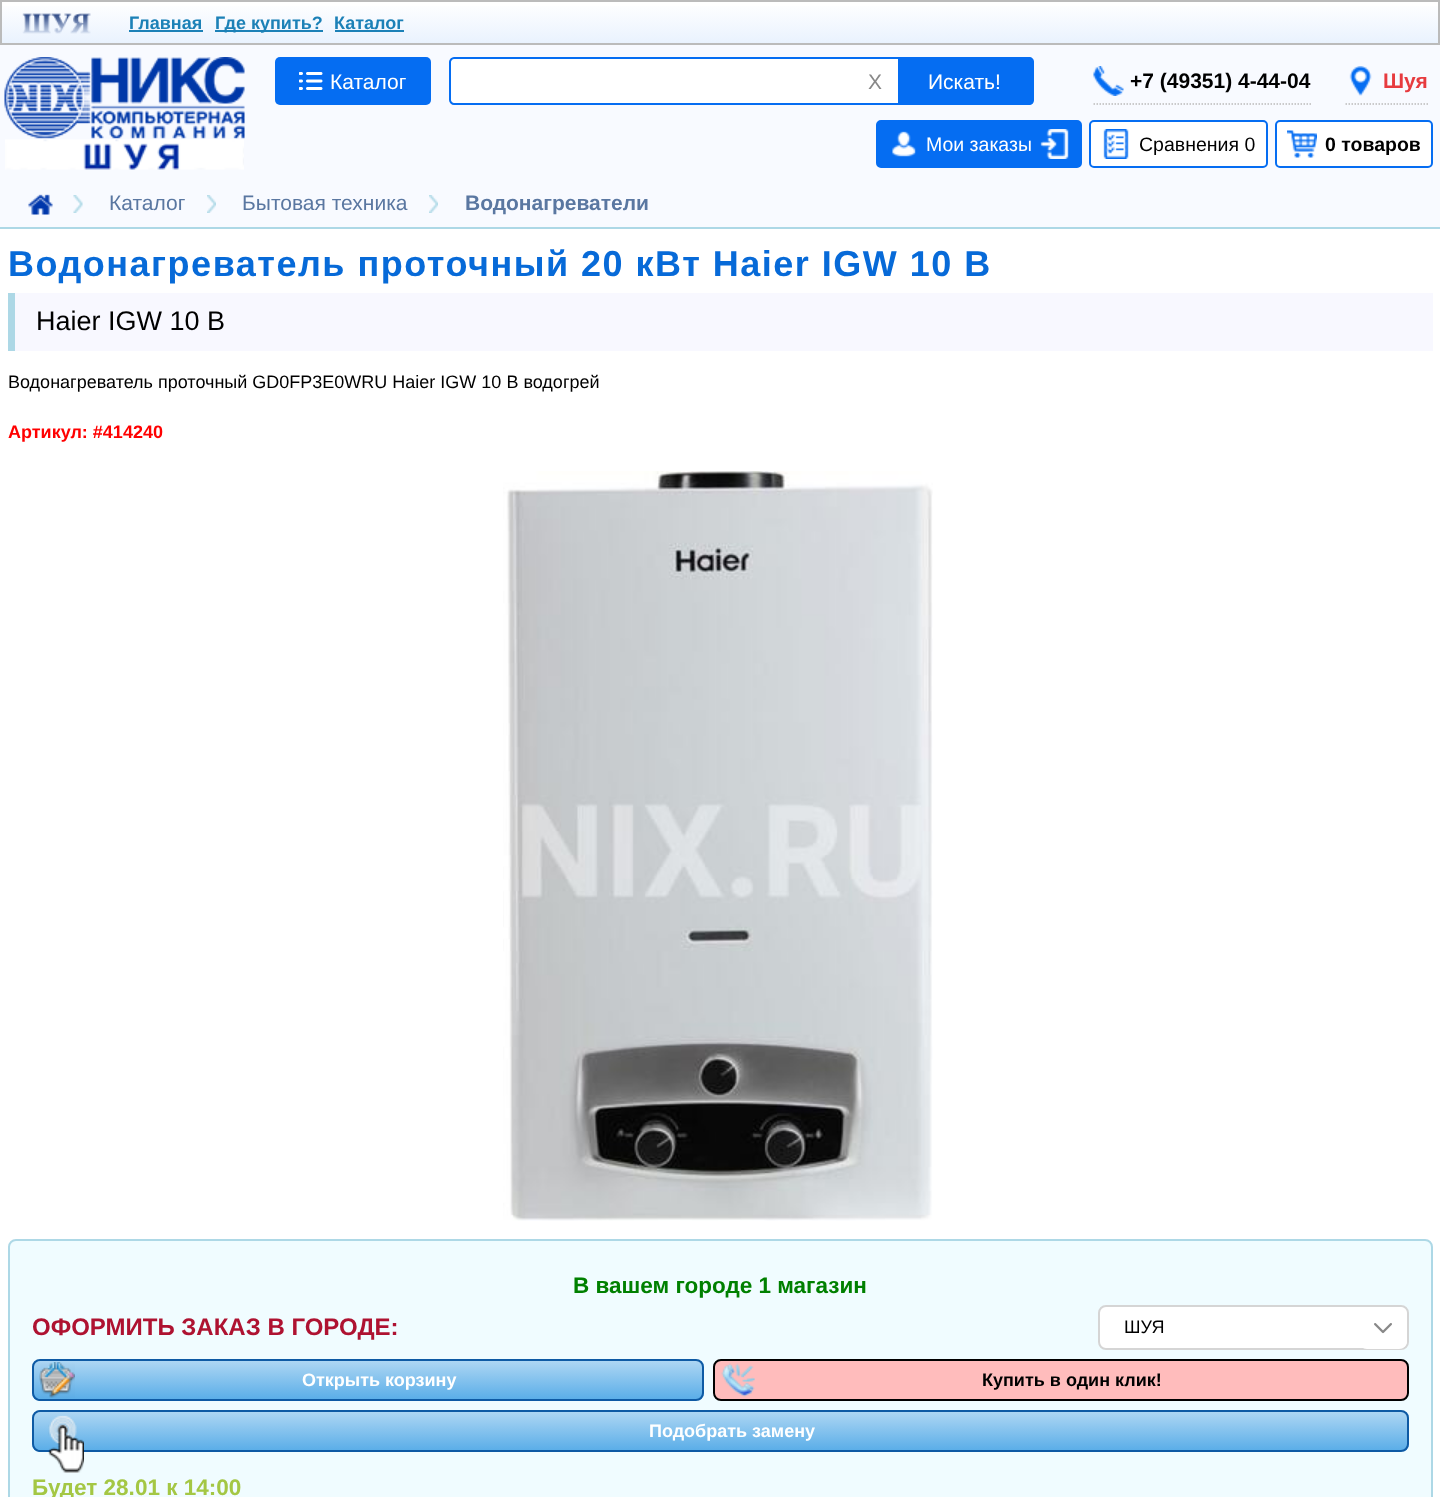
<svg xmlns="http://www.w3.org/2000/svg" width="1440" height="1497">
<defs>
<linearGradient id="g1" gradientUnits="userSpaceOnUse" x1="720" y1="44" x2="720" y2="1.5"><stop offset="0" stop-color="#e9f2fe"/><stop offset="1" stop-color="#fff"/></linearGradient>
<clipPath id="clip1"><rect x="32" y="1359" width="672" height="42" rx="8"/></clipPath>
<linearGradient id="g2" gradientUnits="userSpaceOnUse" x1="368" y1="1361" x2="368" y2="1400"><stop offset="0" stop-color="#add6f3"/><stop offset="1" stop-color="#59ade8"/></linearGradient>
<clipPath id="clip2"><rect x="32" y="1410" width="1377" height="42" rx="8"/></clipPath>
<linearGradient id="g3" gradientUnits="userSpaceOnUse" x1="720" y1="1412" x2="720" y2="1451"><stop offset="0" stop-color="#add6f3"/><stop offset="1" stop-color="#59ade8"/></linearGradient>
</defs>
<rect width="100%" height="100%" fill="#fff"/>
<rect x="2" y="6" width="1436" height="37" fill="url(#g1)"/>
<rect x="1" y="1" width="1438" height="43" fill="none" stroke="#bbb" stroke-width="2"/>
<image x="22" y="13" width="69" height="21" href="media/1.png"/>
<text x="129" y="29" style="font-family:Liberation Sans;font-size:18px;font-weight:bold;fill:#1c81b7">Главная</text>
<rect x="129" y="30" width="74" height="2" fill="#1c81b7"/>
<rect x="215" y="30" width="108" height="2" fill="#1c81b7"/>
<text x="215" y="29" style="font-family:Liberation Sans;font-size:18px;font-weight:bold;fill:#1c81b7">Где купить?</text>
<text x="334" y="29" style="font-family:Liberation Sans;font-size:18px;font-weight:bold;fill:#1c81b7">Каталог</text>
<rect x="335" y="30" width="69" height="2" fill="#1c81b7"/>
<rect y="45" width="1440" height="182" fill="#f8faff"/>
<image x="4" y="57" width="241" height="82" href="media/2.png"/>
<image x="5" y="139" width="239" height="31" href="media/3.png"/>
<rect x="275" y="57" width="156" height="48" rx="5" fill="#056df2"/>
<image x="299" y="72" width="24" height="18" href="media/4.png"/>
<text x="330" y="89" style="font-family:Liberation Sans;font-size:21px;fill:#fff">Каталог</text>
<path d="M897 57h132c3 0 5 2 5 5v38c0 3-2 5-5 5h-132z" fill="#056df2"/>
<path d="M454 58h445v46h-445c-2 0-4-2-4-4v-38c0-2 2-4 4-4z" fill="#fff" stroke="#056df2" stroke-width="2"/>
<text x="868" y="89" style="font-family:Liberation Sans;font-size:21px;fill:#888">X</text>
<text x="928" y="89" style="font-family:Liberation Sans;font-size:21px;fill:#fff">Искать!</text>
<path d="M1093.5 104h217.5" fill="none" stroke="#bababa" stroke-width="1.5" stroke-dasharray="1.5 1.5"/>
<image x="1093" y="66" width="31" height="30" href="media/5.png"/>
<text x="1130" y="88" style="font-family:Liberation Sans;font-size:21px;font-weight:bold;fill:#000">+7 (49351) 4-44-04</text>
<path d="M1345.5 104h82.5" fill="none" stroke="#bababa" stroke-width="1.5" stroke-dasharray="1.5 1.5"/>
<image x="1349" y="66" width="23" height="30" href="media/6.png"/>
<text x="1383" y="88" style="font-family:Liberation Sans;font-size:21px;font-weight:bold;fill:#e73b3f">Шуя</text>
<rect x="877" y="121" width="204" height="46" rx="4" fill="#056df2" stroke="#056df2" stroke-width="2"/>
<image x="892" y="131" width="24" height="26" href="media/7.png"/>
<text x="926" y="151" style="font-family:Liberation Sans;font-size:19.5px;fill:#fff">Мои заказы</text>
<image x="1040" y="129" width="29" height="30" href="media/8.png"/>
<rect x="1090" y="121" width="177" height="46" rx="4" fill="#fff" stroke="#056df2" stroke-width="2"/>
<image x="1103" y="129" width="26" height="30" href="media/9.png"/>
<text x="1139" y="151" style="font-family:Liberation Sans;font-size:19.5px;fill:#000">Сравнения 0</text>
<rect x="1276" y="121" width="156" height="46" rx="4" fill="#fff" stroke="#056df2" stroke-width="2"/>
<image x="1287" y="130" width="30" height="28" href="media/10.png"/>
<text x="1325" y="151" style="font-family:Liberation Sans;font-size:19.5px;font-weight:bold;fill:#000">0 товаров</text>
<rect y="227" width="1440" height="2" fill="#add8e6"/>
<image x="28" y="194" width="25" height="21" href="media/11.png"/>
<image x="73" y="195" width="10" height="18" href="media/12.png"/>
<text x="109" y="210" style="font-family:Liberation Sans;font-size:21px;fill:#5a77a1">Каталог</text>
<image x="207" y="195" width="9" height="18" href="media/13.png"/>
<text x="242" y="210" style="font-family:Liberation Sans;font-size:21px;fill:#5a77a1">Бытовая техника</text>
<image x="429" y="195" width="9" height="18" href="media/14.png"/>
<text x="465" y="210" style="font-family:Liberation Sans;font-size:21px;font-weight:bold;fill:#5a77a1">Водонагреватели</text>
<text x="8" y="276" style="font-family:Liberation Sans;font-size:36px;font-weight:bold;letter-spacing:1.5px;fill:#076ad8">Водонагреватель проточный 20 кВт Haier IGW 10 B</text>
<rect x="15" y="293" width="1418" height="58" fill="#f8f8ff"/>
<rect x="8" y="293" width="7" height="58" fill="#add8e6"/>
<text x="36" y="330" style="font-family:Liberation Sans;font-size:27px;fill:#000">Haier IGW 10 B</text>
<text x="8" y="388" style="font-family:Liberation Sans;font-size:18px;fill:#000">Водонагреватель проточный GD0FP3E0WRU Haier IGW 10 B водогрей</text>
<text x="8" y="438" style="font-family:Liberation Sans;font-size:18px;font-weight:bold;fill:#f00">Артикул: #414240</text>
<image x="503" y="471" width="430" height="750" href="media/15.png"/>
<rect x="9" y="1240" width="1423" height="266" rx="7" fill="#f0fcff" stroke="#add8e6" stroke-width="2"/>
<text x="573" y="1293" style="font-family:Liberation Sans;font-size:22.5px;font-weight:bold;fill:#008000">В вашем городе 1 магазин</text>
<text x="32" y="1335" style="font-family:Liberation Sans;font-size:24px;font-weight:bold;fill:#ae1231">ОФОРМИТЬ ЗАКАЗ В ГОРОДЕ:</text>
<rect x="1099" y="1306" width="309" height="43" rx="7" fill="#fff" stroke="#d5d5d5" stroke-width="2"/>
<text x="1124" y="1333" style="font-family:Liberation Sans;font-size:18px;fill:#000">ШУЯ</text>
<rect x="1359" y="1307" width="48" height="42" rx="8" fill="#fff"/>
<image x="1374" y="1323" width="18" height="11" href="media/16.png"/>
<g clip-path="url(#clip1)">
<rect x="32" y="1361" width="672" height="39" fill="url(#g2)"/>
</g>
<rect x="33" y="1360" width="670" height="40" rx="7" fill="none" stroke="#0e5aa4" stroke-width="2"/>
<image x="39" y="1362" width="36" height="36" href="media/17.png"/>
<text x="302" y="1386" style="font-family:Liberation Sans;font-size:18px;font-weight:bold;fill:#fff">Открыть корзину</text>
<rect x="714" y="1360" width="694" height="40" rx="7" fill="#ffbcbc" stroke="#000" stroke-width="2"/>
<image x="721" y="1363" width="34" height="34" href="media/18.png"/>
<text x="982" y="1386" style="font-family:Liberation Sans;font-size:18px;font-weight:bold;fill:#000">Купить в один клик!</text>
<g clip-path="url(#clip2)">
<rect x="32" y="1412" width="1377" height="39" fill="url(#g3)"/>
</g>
<rect x="33" y="1411" width="1375" height="40" rx="7" fill="none" stroke="#0e5aa4" stroke-width="2"/>
<image x="48" y="1415" width="36" height="58" href="media/19.png"/>
<text x="649" y="1437" style="font-family:Liberation Sans;font-size:18px;font-weight:bold;fill:#fff">Подобрать замену</text>
<text x="32" y="1495" style="font-family:Liberation Sans;font-size:22.5px;font-weight:bold;fill:#a4c744">Будет 28.01 к 14:00</text>
</svg>
